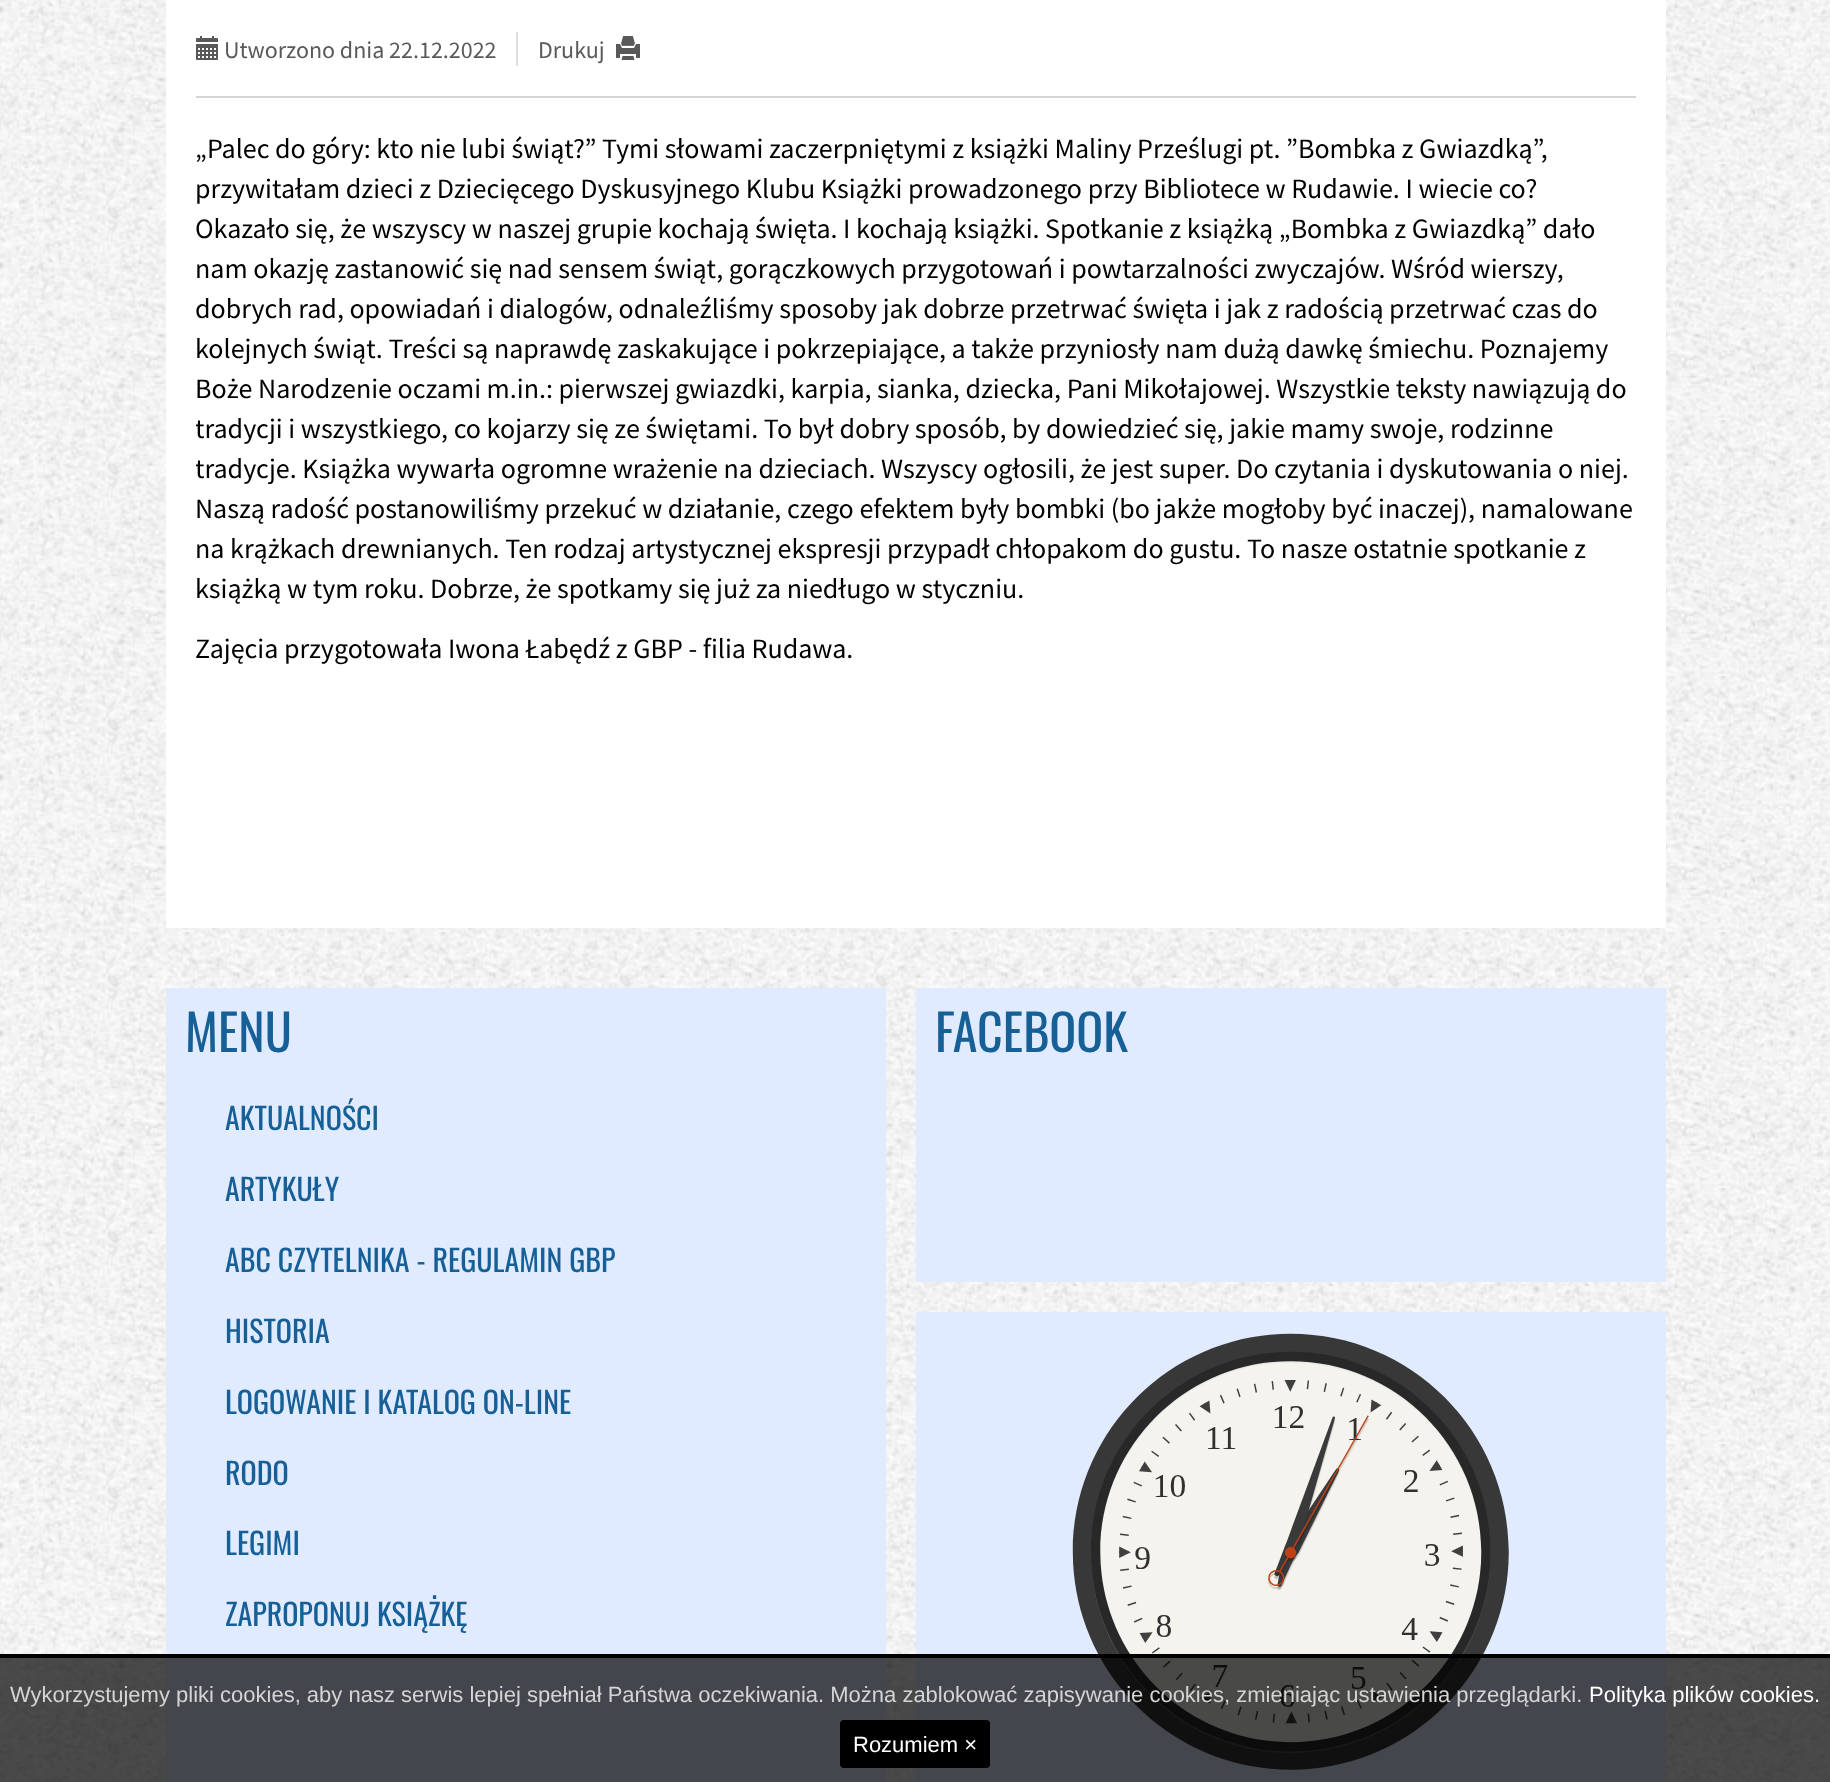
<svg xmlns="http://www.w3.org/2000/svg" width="1830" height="1782">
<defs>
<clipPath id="clip1"><rect x="196" y="128" width="1440" height="800"/></clipPath>
</defs>
<rect width="100%" height="100%" fill="#fff"/>
<image x="0" y="0" width="1830" height="1782" href="media/1.png"/>
<rect x="166" width="1500" height="928" fill="#fff"/>
<rect x="196" y="96" width="1440" height="2" fill="#d5d5d5"/>
<image x="196" y="36" width="22" height="24" href="media/2.png"/>
<text x="224" y="58" style="font-family:Source Sans Pro;font-size:24px;fill:#595959">Utworzono dnia 22.12.2022</text>
<rect x="516" y="32" width="2" height="34" fill="#dfdfdf"/>
<text x="538" y="58" style="font-family:Source Sans Pro;font-size:24px;fill:#595959">Drukuj</text>
<image x="616" y="36" width="24" height="24" href="media/3.png"/>
<text x="195" y="158" style="font-family:Source Sans Pro;font-size:28px;fill:#000">„Palec do góry: kto nie lubi świąt?” Tymi słowami zaczerpniętymi z książki Maliny Prześlugi pt. ”Bombka z Gwiazdką”,</text>
<text x="195" y="198" style="font-family:Source Sans Pro;font-size:28px;fill:#000">przywitałam dzieci z Dziecięcego Dyskusyjnego Klubu Książki prowadzonego przy Bibliotece w Rudawie. I wiecie co?</text>
<text x="195" y="238" style="font-family:Source Sans Pro;font-size:28px;fill:#000">Okazało się, że wszyscy w naszej grupie kochają święta. I kochają książki. Spotkanie z książką „Bombka z Gwiazdką” dało</text>
<text x="195" y="278" style="font-family:Source Sans Pro;font-size:28px;fill:#000">nam okazję zastanowić się nad sensem świąt, gorączkowych przygotowań i powtarzalności zwyczajów. Wśród wierszy,</text>
<text x="195" y="318" style="font-family:Source Sans Pro;font-size:28px;fill:#000">dobrych rad, opowiadań i dialogów, odnaleźliśmy sposoby jak dobrze przetrwać święta i jak z radością przetrwać czas do</text>
<text x="195" y="358" style="font-family:Source Sans Pro;font-size:28px;fill:#000">kolejnych świąt. Treści są naprawdę zaskakujące i pokrzepiające, a także przyniosły nam dużą dawkę śmiechu. Poznajemy</text>
<text x="195" y="398" style="font-family:Source Sans Pro;font-size:28px;fill:#000">Boże Narodzenie oczami m.in.: pierwszej gwiazdki, karpia, sianka, dziecka, Pani Mikołajowej. Wszystkie teksty nawiązują do</text>
<g clip-path="url(#clip1)">
<text x="195" y="438" style="font-family:Source Sans Pro;font-size:28px;fill:#000">tradycji i wszystkiego, co kojarzy się ze świętami. To był dobry sposób, by dowiedzieć się, jakie mamy swoje, rodzinne</text>
<text x="195" y="478" style="font-family:Source Sans Pro;font-size:28px;fill:#000">tradycje. Książka wywarła ogromne wrażenie na dzieciach. Wszyscy ogłosili, że jest super. Do czytania i dyskutowania o niej.</text>
</g>
<text x="195" y="518" style="font-family:Source Sans Pro;font-size:28px;fill:#000">Naszą radość postanowiliśmy przekuć w działanie, czego efektem były bombki (bo jakże mogłoby być inaczej), namalowane</text>
<text x="195" y="558" style="font-family:Source Sans Pro;font-size:28px;fill:#000">na krążkach drewnianych. Ten rodzaj artystycznej ekspresji przypadł chłopakom do gustu. To nasze ostatnie spotkanie z</text>
<text x="195" y="598" style="font-family:Source Sans Pro;font-size:28px;fill:#000">książką w tym roku. Dobrze, że spotkamy się już za niedługo w styczniu.</text>
<text x="195" y="658" style="font-family:Source Sans Pro;font-size:28px;fill:#000">Zajęcia przygotowała Iwona Łabędź z GBP - filia Rudawa.</text>
<rect x="166" y="988" width="720" height="794" fill="#e0ebff"/>
<text x="185" y="1052" style="font-family:Oswald;font-size:50px;fill:#165f97">MENU</text>
<text x="225" y="1130" style="font-family:Oswald;font-size:30px;fill:#165f97">AKTUALNOŚCI</text>
<text x="225" y="1201" style="font-family:Oswald;font-size:30px;fill:#165f97">ARTYKUŁY</text>
<text x="225" y="1272" style="font-family:Oswald;font-size:30px;fill:#165f97">ABC CZYTELNIKA - REGULAMIN GBP</text>
<text x="225" y="1343" style="font-family:Oswald;font-size:30px;fill:#165f97">HISTORIA</text>
<text x="225" y="1414" style="font-family:Oswald;font-size:30px;fill:#165f97">LOGOWANIE I KATALOG ON-LINE</text>
<text x="225" y="1485" style="font-family:Oswald;font-size:30px;fill:#165f97">RODO</text>
<text x="225" y="1555" style="font-family:Oswald;font-size:30px;fill:#165f97">LEGIMI</text>
<text x="225" y="1626" style="font-family:Oswald;font-size:30px;fill:#165f97">ZAPROPONUJ KSIĄŻKĘ</text>
<rect x="916" y="988" width="750" height="294" fill="#e0ebff"/>
<text x="935" y="1052" style="font-family:Oswald;font-size:50px;fill:#165f97">FACEBOOK</text>
<rect x="916" y="1312" width="750" height="470" fill="#e0ebff"/>
<image x="1072" y="1333" width="437" height="437" href="media/4.png"/>
<rect y="1658" width="1830" height="124" fill="#000000b3"/>
<rect y="1654" width="1830" height="4" fill="#000"/>
<text x="10" y="1702" style="font-family:Liberation Sans;font-size:22px;fill:#d5d5d5">Wykorzystujemy pliki cookies, aby nasz serwis lepiej spełniał Państwa oczekiwania. Można zablokować zapisywanie cookies, zmieniając ustawienia przeglądarki.</text>
<text x="1589" y="1702" style="font-family:Liberation Sans;font-size:22px;fill:#fff">Polityka plików cookies.</text>
<rect x="840" y="1720" width="150" height="48" rx="4" fill="#000"/>
<text x="853" y="1752" style="font-family:Liberation Sans;font-size:22px;fill:#fff">Rozumiem ×</text>
</svg>
